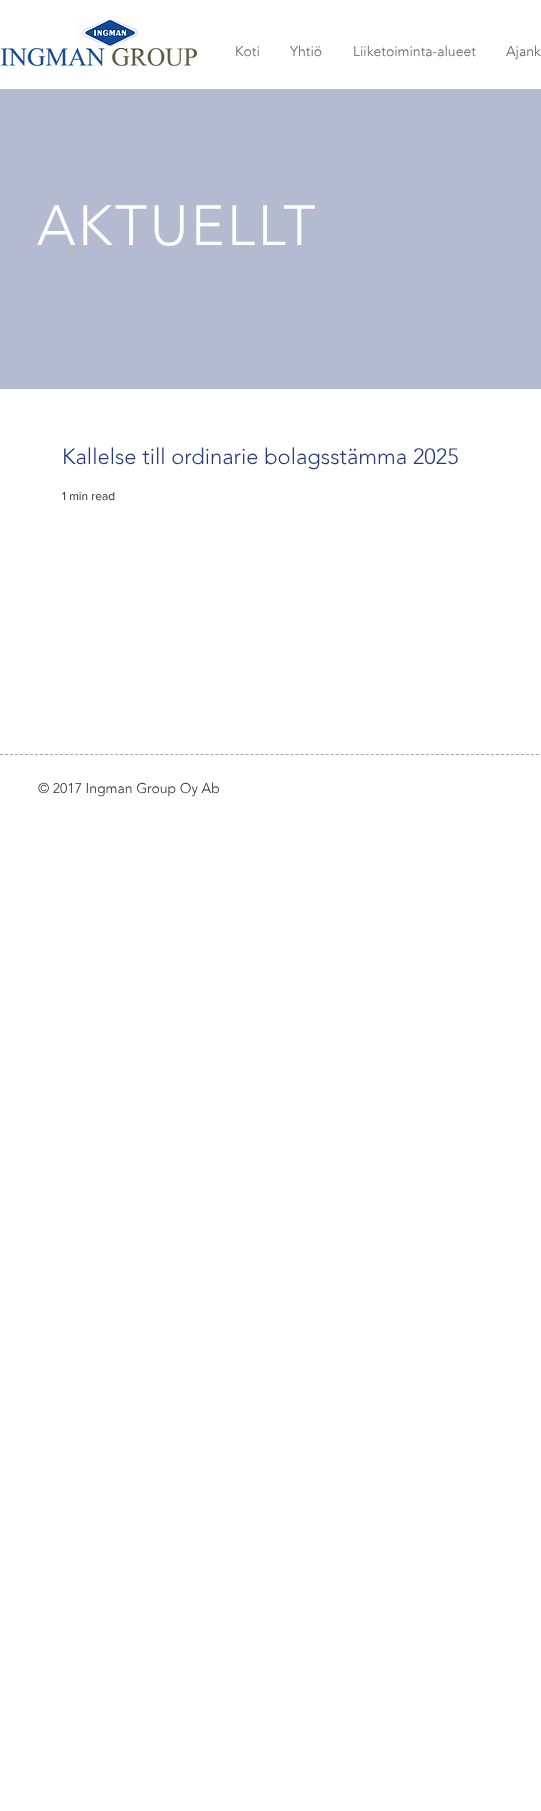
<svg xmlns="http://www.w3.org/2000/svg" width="541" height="1811">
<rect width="100%" height="100%" fill="#fff"/>
<image x="0" y="18" width="197" height="49" href="media/1.png"/>
<text x="235" y="56" style="font-family:'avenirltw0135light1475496';font-size:14px;font-weight:300;fill:#605e5e">Koti</text>
<text x="290" y="56" style="font-family:'avenirltw0135light1475496';font-size:14px;font-weight:300;fill:#605e5e">Yhtiö</text>
<text x="353" y="56" style="font-family:'avenirltw0135light1475496';font-size:14px;font-weight:300;fill:#605e5e">Liiketoiminta-alueet</text>
<text x="506" y="56" style="font-family:'avenirltw0135light1475496';font-size:14px;font-weight:300;fill:#605e5e">Ajank</text>
<rect y="89" width="541" height="300" fill="#b4bbd1"/>
<text x="37" y="245" style="font-family:'avenirltw0135light1475496';font-size:56px;font-weight:300;letter-spacing:2.75px;fill:#fff">AKTUELLT</text>
<text x="62" y="464" style="font-family:'avenirltw0135light1475496';font-size:22px;font-weight:300;fill:#273b7b">Kallelse till ordinarie bolagsstämma 2025</text>
<text x="62" y="500" style="font-family:'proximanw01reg';font-size:12px;fill:#2f2e2e">1 min read</text>
<path d="M0 754.5h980" fill="none" stroke="#a6a6a6" stroke-dasharray="3 2.01"/>
<text x="38" y="793" style="font-family:'avenirltw0135light1475496';font-size:14px;font-weight:300;fill:#2f2e2e">© 2017 Ingman Group Oy Ab</text>
</svg>
